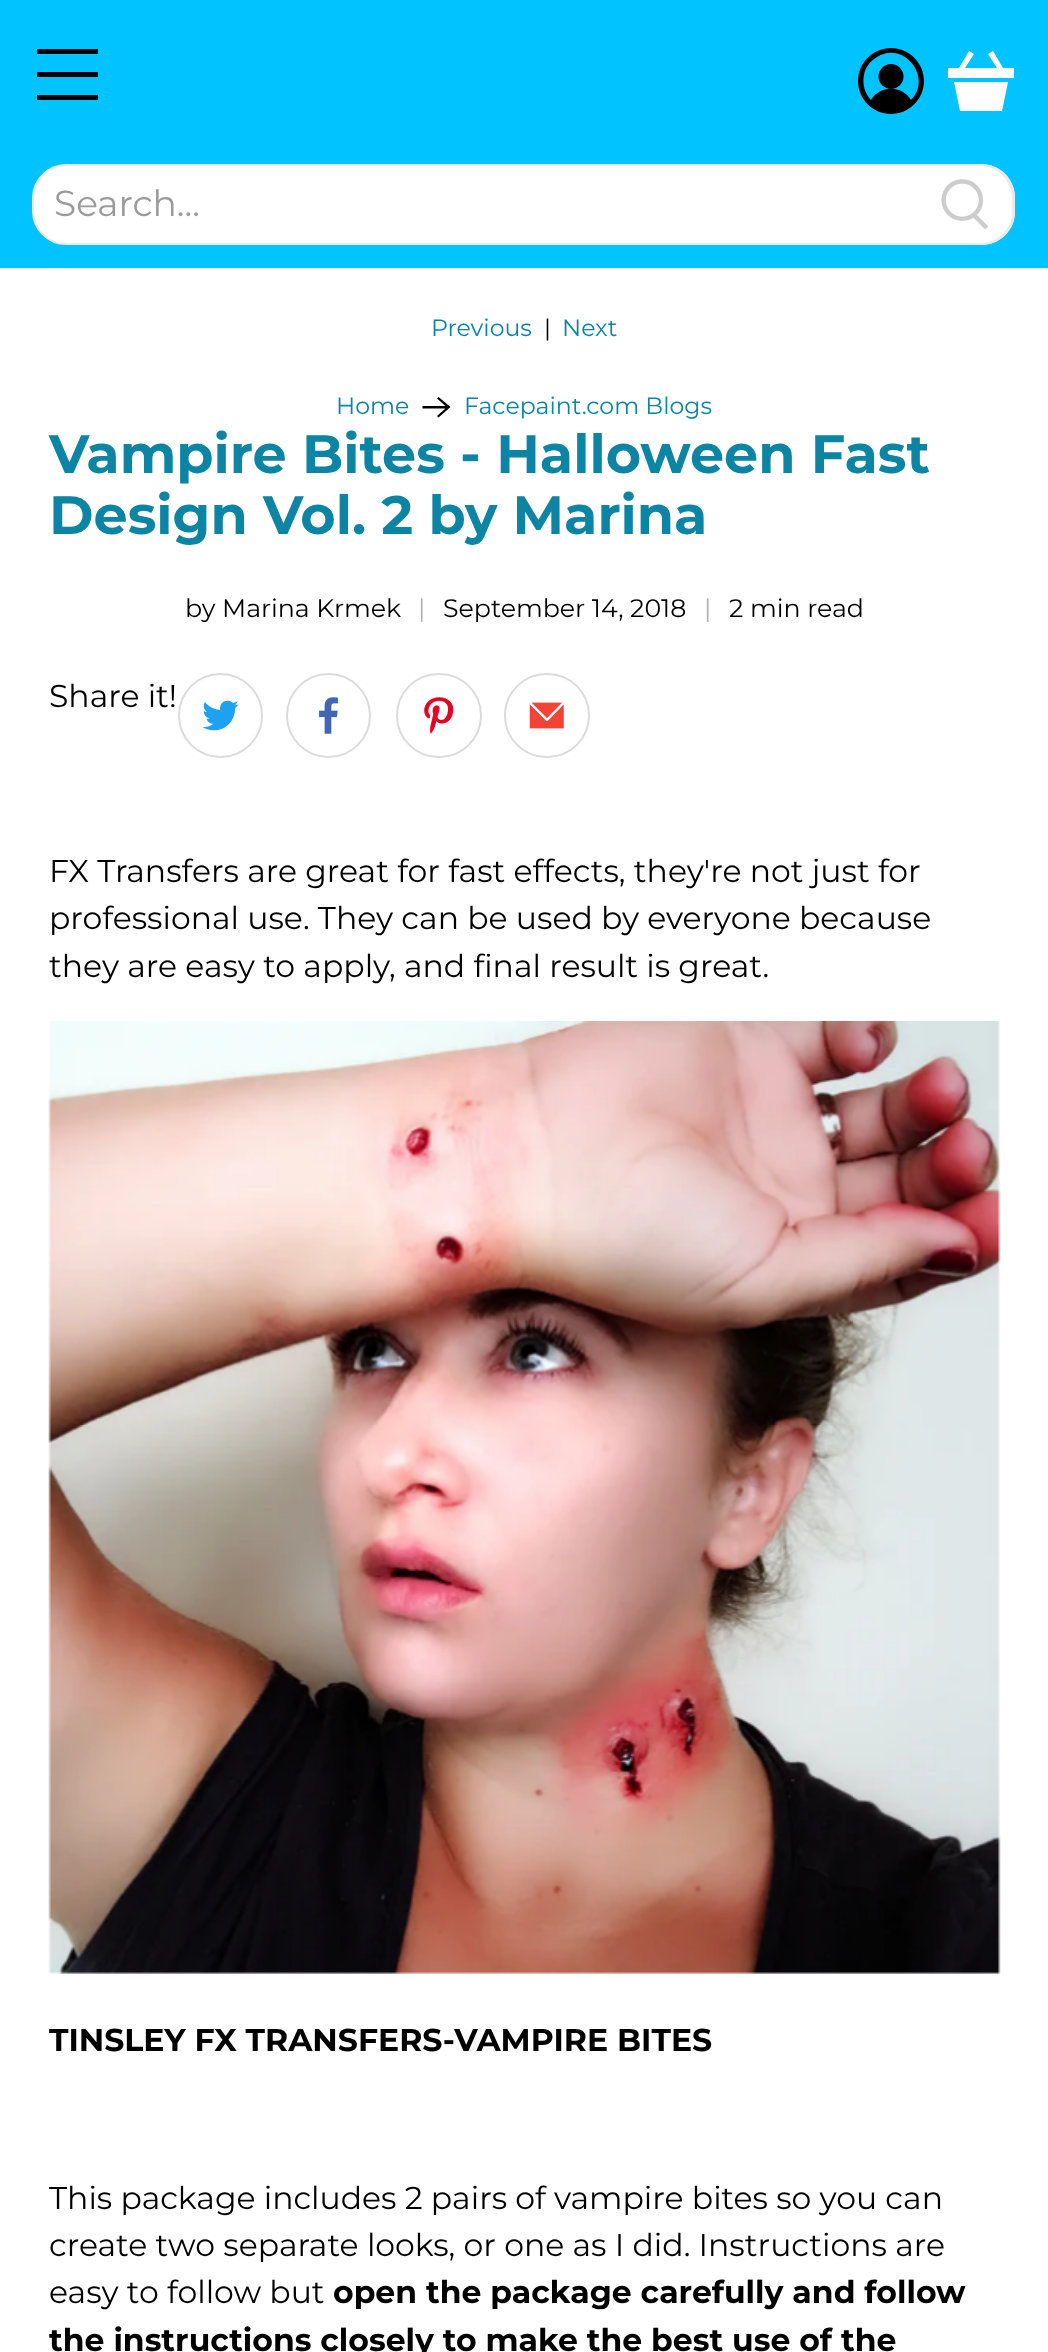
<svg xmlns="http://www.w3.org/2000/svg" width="1048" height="2352">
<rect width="100%" height="100%" fill="#fff"/>
<rect width="1048" height="268" fill="#00c3ff"/>
<rect x="37" y="49" width="61" height="5" fill="#000"/>
<rect x="37" y="72" width="61" height="5" fill="#000"/>
<rect x="37" y="95" width="61" height="5" fill="#000"/>
<circle cx="891" cy="76.5" r="12.5" fill="#000"/>
<path d="M891 48c-18 0-33 15-33 33c0 18 15 33 33 33c18 0 33-15 33-33c0-18-15-33-33-33zm20 52c-9-15-31-15-40 0c-6-6-9-16-7-25c1-7 6-14 13-18c27-17 56 21 34 43z" fill="#000"/>
<path d="M1003 68l-10-17l-5 3l9 14h-32l9-14l-5-3l-10 17h-11v10h66v-10z" fill="#fff"/>
<path d="M960 111h42l6-29h-54z" fill="#fff"/>
<path d="M66 165h853v79h-853c-18 0-33-15-33-33v-13c0-18 15-33 33-33z" fill="#fff" stroke="#eaeaea" stroke-width="2"/>
<text x="54" y="216" style="font-family:Montserrat;font-size:36px;fill:#9b9b9b">Search...</text>
<path d="M918 164h63c19 0 34 15 34 34v13c0 19-15 34-34 34h-63z" fill="#fff"/>
<path d="M918 164h63c19 0 34 15 34 34v14c0 18-15 33-34 33h-63zm0 2h63c17 0 31 15 31 32v14c0 17-14 31-31 31h-63z" fill="#eaeaea" fill-rule="evenodd"/>
<image x="941" y="179" width="48" height="51" href="media/1.png"/>
<text x="431" y="336" style="font-family:Montserrat;font-size:23.6px;fill:#0c84a4">Previous</text>
<text x="544" y="336" style="font-family:Montserrat;font-size:23.6px;fill:#000">|</text>
<text x="562" y="336" style="font-family:Montserrat;font-size:23.6px;fill:#0c84a4">Next</text>
<text x="336" y="414" style="font-family:Montserrat;font-size:23.6px;fill:#0c84a4">Home</text>
<path d="M438.5 397l-1.5 1.5l8.5 7.5h-23v2.5h23l-8.5 7.5l1.5 1.5l12-10.5z" fill="#000"/>
<text x="464" y="414" style="font-family:Montserrat;font-size:23.6px;fill:#0c84a4">Facepaint.com Blogs</text>
<text x="49" y="473" style="font-family:Montserrat;font-size:54px;font-weight:bold;fill:#0c84a4">Vampire Bites - Halloween Fast</text>
<text x="49" y="534" style="font-family:Montserrat;font-size:54px;font-weight:bold;fill:#0c84a4">Design Vol. 2 by Marina</text>
<text x="185" y="617" style="font-family:Montserrat;font-size:25.25px;fill:#000">by Marina Krmek</text>
<text x="418" y="617" style="font-family:Montserrat;font-size:25.25px;fill:#b3b3b3">|</text>
<text x="443" y="617" style="font-family:Montserrat;font-size:25.25px;fill:#000">September 14, 2018</text>
<text x="704" y="617" style="font-family:Montserrat;font-size:25.25px;fill:#b3b3b3">|</text>
<text x="729" y="617" style="font-family:Montserrat;font-size:25.25px;fill:#000">2 min read</text>
<text x="49" y="707" style="font-family:Montserrat;font-size:31.5px;fill:#000">Share it!</text>
<circle cx="220.5" cy="715.5" r="41.5" fill="none" stroke="#dbdbdb" stroke-width="2"/>
<image x="202" y="700" width="37" height="31" href="media/2.png"/>
<circle cx="328.5" cy="715.5" r="41.5" fill="none" stroke="#dbdbdb" stroke-width="2"/>
<image x="319" y="697" width="19" height="37" href="media/3.png"/>
<rect x="397" y="674" width="84" height="83" rx="41.5" fill="none" stroke="#dbdbdb" stroke-width="2"/>
<image x="424" y="697" width="30" height="37" href="media/4.png"/>
<rect x="505" y="674" width="84" height="83" rx="41.5" fill="none" stroke="#dbdbdb" stroke-width="2"/>
<image x="529" y="702" width="35" height="27" href="media/5.png"/>
<text x="49" y="882" style="font-family:Montserrat;font-size:31.5px;fill:#000">FX Transfers are great for fast effects, they're not just for</text>
<text x="49" y="929" style="font-family:Montserrat;font-size:31.5px;fill:#000">professional use. They can be used by everyone because</text>
<text x="49" y="977" style="font-family:Montserrat;font-size:31.5px;fill:#000">they are easy to apply, and final result is great.</text>
<image x="48" y="1021" width="953" height="953" href="media/6.png"/>
<text x="49" y="2051" style="font-family:Montserrat;font-size:31.5px;font-weight:bold;fill:#000">TINSLEY FX TRANSFERS-VAMPIRE BITES</text>
<text x="49" y="2209" style="font-family:Montserrat;font-size:31.5px;fill:#000">This package includes 2 pairs of vampire bites so you can</text>
<text x="49" y="2256" style="font-family:Montserrat;font-size:31.5px;fill:#000">create two separate looks, or one as I did. Instructions are</text>
<text x="49" y="2303" style="font-family:Montserrat;font-size:31.5px;fill:#000">easy to follow but</text>
<text x="333" y="2303" style="font-family:Montserrat;font-size:31.5px;font-weight:bold;fill:#000">open the package carefully and follow</text>
<text x="49" y="2351" style="font-family:Montserrat;font-size:31.5px;font-weight:bold;fill:#000">the instructions closely to make the best use of the</text>
</svg>
